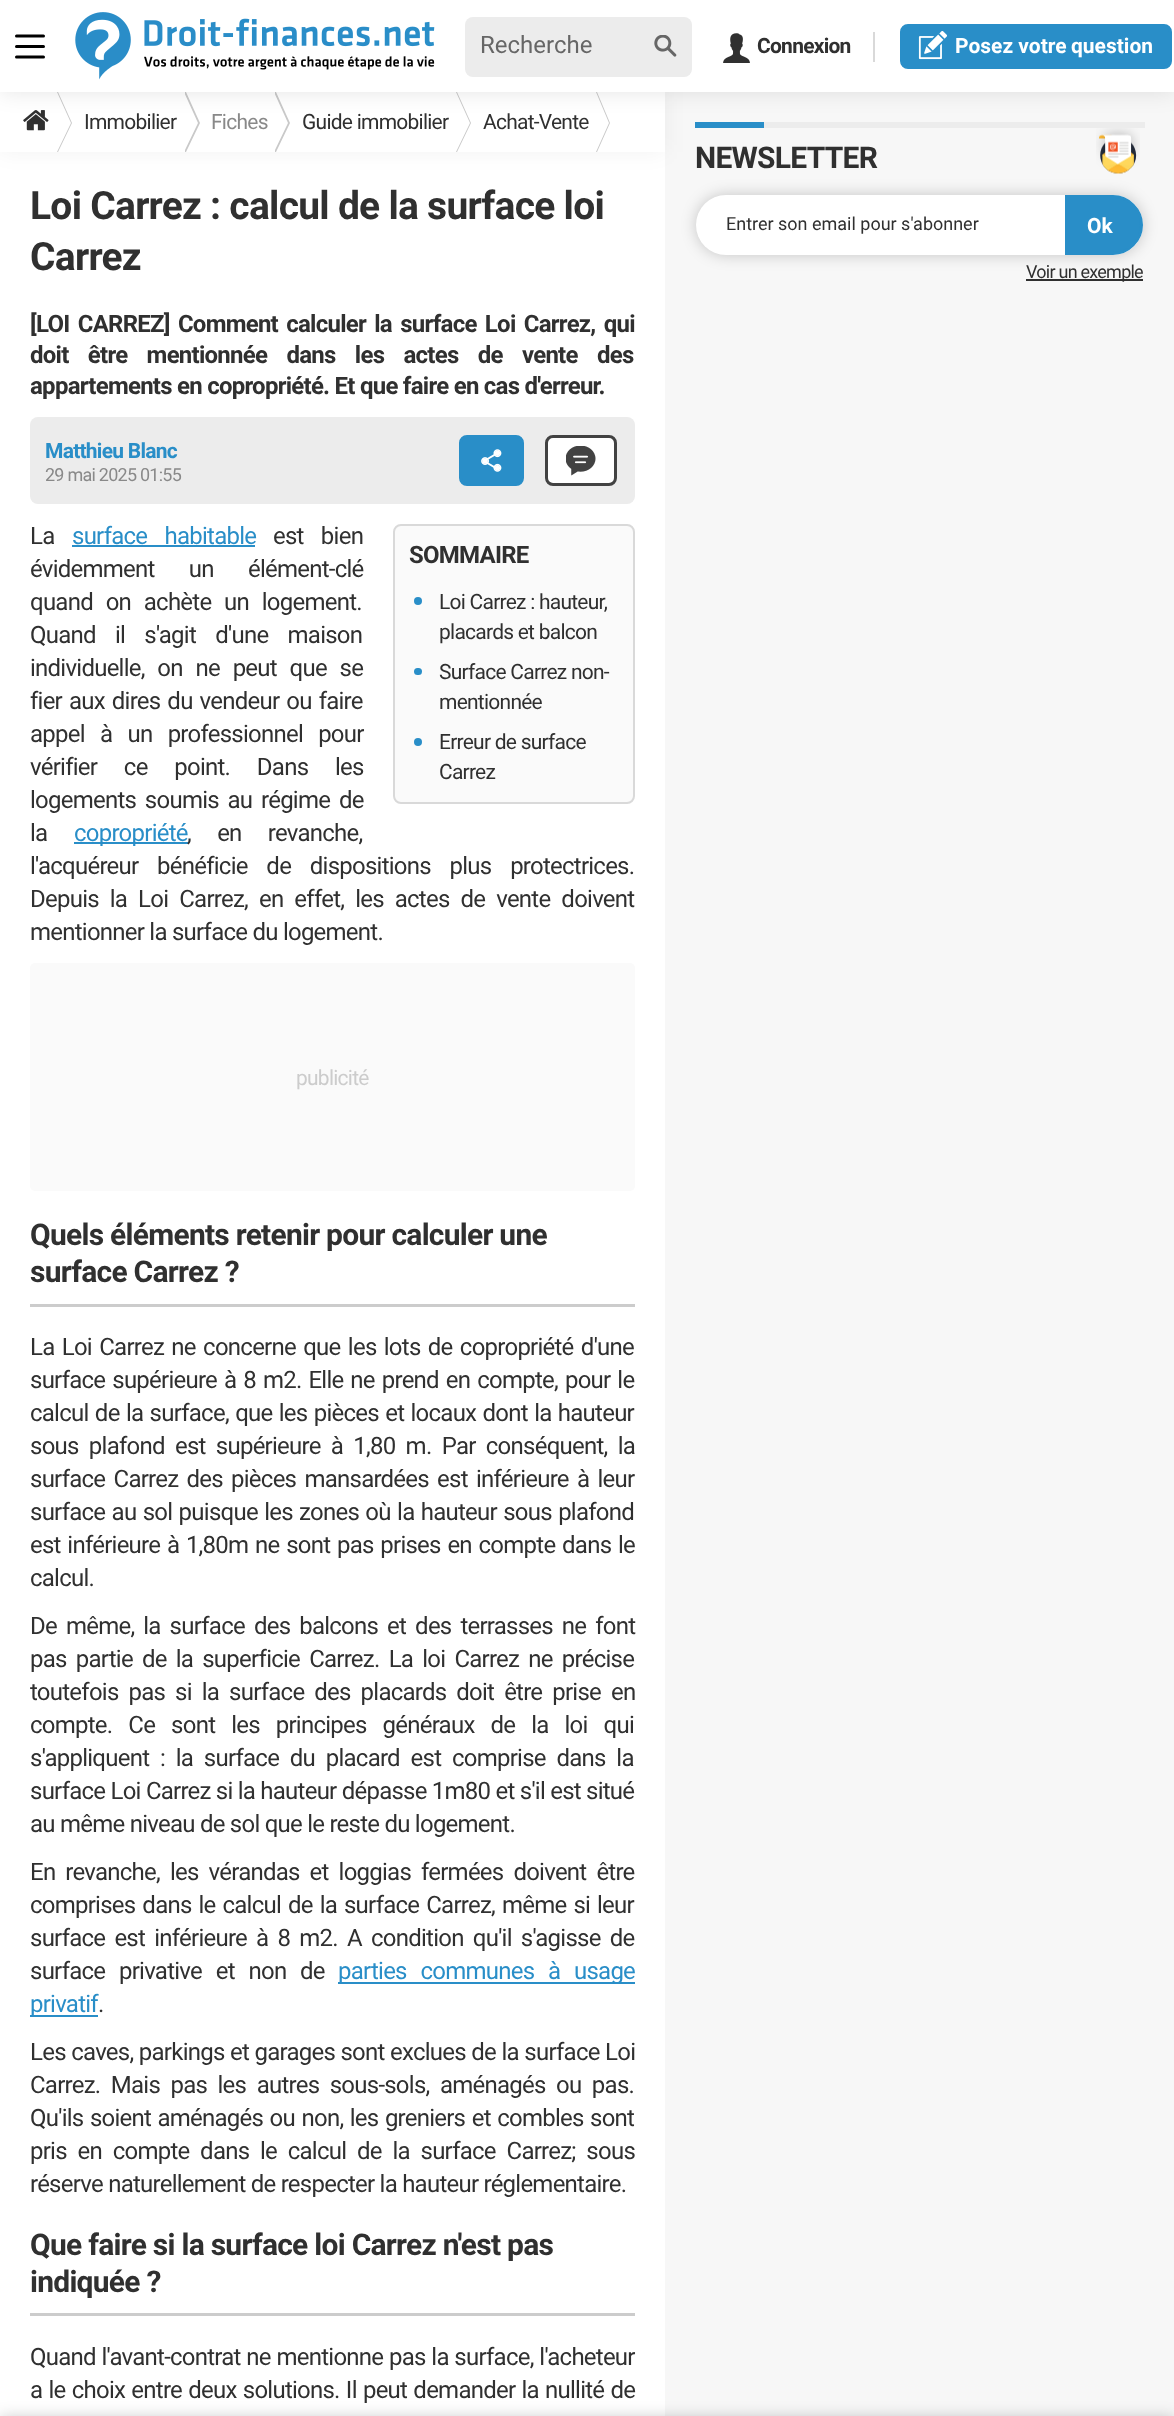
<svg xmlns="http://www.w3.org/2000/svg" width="1174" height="2416">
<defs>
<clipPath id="clip1"><rect x="185" y="92" width="15" height="60"/></clipPath>
<clipPath id="clip2"><rect x="275" y="92" width="15" height="60"/></clipPath>
</defs>
<rect width="100%" height="100%" fill="#fff"/>
<rect x="665" y="92" width="509" height="2324" fill="#f7f7f7"/>
<rect x="695" y="122" width="69" height="6" fill="#298ec8"/>
<rect y="92" width="665" height="60" fill="#0000000d" filter="blur(10.5px)"/>
<rect y="92" width="665" height="60" fill="#fff"/>
<image x="23" y="110" width="26" height="21" href="media/5.png"/>
<path d="M57 92h1l14 31l-14 29h-1l14-29z" fill="#c9c9c9" fill-rule="evenodd"/>
<g clip-path="url(#clip1)">
<path d="M184 92h2l14 31l-14 29h-2l14-29z" fill="#c9c9c9" fill-rule="evenodd"/>
</g>
<g clip-path="url(#clip2)">
<path d="M274 92h2l14 31l-14 29h-2l14-29z" fill="#c9c9c9" fill-rule="evenodd"/>
</g>
<path d="M456 92h1l14 31l-14 29h-1l14-29z" fill="#c9c9c9" fill-rule="evenodd"/>
<path d="M596 92h1l13 31l-13 29h-1l13-29z" fill="#c9c9c9" fill-rule="evenodd"/>
<rect x="764" y="122" width="381" height="6" fill="#ececec"/>
<rect width="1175" height="92" fill="#0000001a" filter="blur(11px)"/>
<rect width="1174" height="92" fill="#fff"/>
<path d="M16.5 46.5h27m-27-10.5h27m-27 21h27" fill="none" stroke="#000" stroke-width="3" stroke-linecap="round"/>
<image x="75" y="12" width="360" height="68" href="media/1.png"/>
<rect x="465" y="17" width="227" height="60" rx="8" fill="#ececec"/>
<text x="480" y="53" style="font-family:Roboto;font-size:24px;fill:#666">Recherche</text>
<image x="654" y="35" width="23" height="22" href="media/2.png"/>
<image x="723" y="33" width="27" height="30" href="media/3.png"/>
<text x="757" y="53" style="font-family:Roboto;font-size:21px;font-weight:bold;letter-spacing:-0.75px;fill:#303030">Connexion</text>
<rect x="873" y="32" width="2" height="30" fill="#d9d9d9"/>
<rect x="901.5" y="25.5" width="269" height="42" rx="6.5" fill="#298ec8" stroke="#298ec8" stroke-width="3"/>
<image x="918" y="31" width="29" height="29" href="media/4.png"/>
<text x="955" y="53" style="font-family:Roboto;font-size:21px;font-weight:bold;fill:#fff">Posez votre</text>
<text x="1071" y="53" style="font-family:Roboto;font-size:21px;font-weight:bold;fill:#fff">question</text>
<text x="84" y="129" style="font-family:Roboto;font-size:21px;letter-spacing:-0.75px;fill:#303030">Immobilier</text>
<text x="211" y="129" style="font-family:Roboto;font-size:21px;letter-spacing:-0.75px;fill:#898989">Fiches</text>
<text x="302" y="129" style="font-family:Roboto;font-size:21px;letter-spacing:-0.75px;fill:#303030">Guide immobilier</text>
<text x="483" y="129" style="font-family:Roboto;font-size:21px;letter-spacing:-0.75px;fill:#303030">Achat-Vente</text>
<text x="30" y="219" style="font-family:Roboto;font-size:39px;font-weight:bold;letter-spacing:-0.75px;fill:#303030">Loi Carrez : calcul de la surface loi</text>
<text x="30" y="270" style="font-family:Roboto;font-size:39px;font-weight:bold;letter-spacing:-0.75px;fill:#303030">Carrez</text>
<text x="30" y="332" word-spacing="3" style="font-family:Roboto;font-size:24px;font-weight:bold;letter-spacing:-0.75px;fill:#303030">[LOI CARREZ] Comment calculer la surface Loi Carrez, qui</text>
<text x="30" y="363" word-spacing="14" style="font-family:Roboto;font-size:24px;font-weight:bold;letter-spacing:-0.75px;fill:#303030">doit être mentionnée dans les actes de vente des</text>
<text x="30" y="394" style="font-family:Roboto;font-size:24px;font-weight:bold;letter-spacing:-0.75px;fill:#303030">appartements en copropriété. Et que faire en cas d'erreur.</text>
<rect x="30" y="417" width="605" height="87" rx="8" fill="#ececec"/>
<text x="45" y="458" style="font-family:Roboto;font-size:21px;font-weight:bold;letter-spacing:-0.75px;fill:#298ec8">Matthieu Blanc</text>
<text x="45" y="481" style="font-family:Roboto;font-size:18px;letter-spacing:-0.75px;fill:#898989">29 mai 2025 01:55</text>
<rect x="460.5" y="436.5" width="62" height="48" rx="6.5" fill="#298ec8" stroke="#298ec8" stroke-width="3"/>
<image x="481" y="449" width="21" height="23" href="media/6.png"/>
<rect x="546.5" y="436.5" width="69" height="48" rx="6.5" fill="#fff" stroke="#424242" stroke-width="3"/>
<image x="566" y="446" width="30" height="30" href="media/7.png"/>
<text x="30" y="544" style="font-family:Roboto;font-size:24px;letter-spacing:-0.75px;fill:#303030">La</text>
<text x="72" y="544" word-spacing="12" style="font-family:Roboto;font-size:24px;letter-spacing:-0.75px;fill:#298ec8">surface habitable</text>
<rect x="72" y="545" width="183" height="2" fill="#298ec8"/>
<text x="273" y="544" word-spacing="12" style="font-family:Roboto;font-size:24px;letter-spacing:-0.75px;fill:#303030">est bien</text>
<text x="30" y="577" word-spacing="29" style="font-family:Roboto;font-size:24px;letter-spacing:-0.75px;fill:#303030">évidemment un élément-clé</text>
<text x="30" y="610" word-spacing="7.5" style="font-family:Roboto;font-size:24px;letter-spacing:-0.75px;fill:#303030">quand on achète un logement.</text>
<text x="30" y="643" word-spacing="14" style="font-family:Roboto;font-size:24px;letter-spacing:-0.75px;fill:#303030">Quand il s'agit d'une maison</text>
<text x="30" y="676" word-spacing="7.5" style="font-family:Roboto;font-size:24px;letter-spacing:-0.75px;fill:#303030">individuelle, on ne peut que se</text>
<text x="30" y="709" word-spacing="1.75" style="font-family:Roboto;font-size:24px;letter-spacing:-0.75px;fill:#303030">fier aux dires du vendeur ou faire</text>
<text x="30" y="742" word-spacing="10" style="font-family:Roboto;font-size:24px;letter-spacing:-0.75px;fill:#303030">appel à un professionnel pour</text>
<text x="30" y="775" word-spacing="21.5" style="font-family:Roboto;font-size:24px;letter-spacing:-0.75px;fill:#303030">vérifier ce point. Dans les</text>
<text x="30" y="808" word-spacing="3.5" style="font-family:Roboto;font-size:24px;letter-spacing:-0.75px;fill:#303030">logements soumis au régime de</text>
<text x="30" y="841" style="font-family:Roboto;font-size:24px;letter-spacing:-0.75px;fill:#303030">la</text>
<rect x="74" y="842" width="114" height="2" fill="#298ec8"/>
<text x="74" y="841" style="font-family:Roboto;font-size:24px;letter-spacing:-0.75px;fill:#298ec8">copropriété</text>
<text x="187" y="841" word-spacing="21" style="font-family:Roboto;font-size:24px;letter-spacing:-0.75px;fill:#303030">, en revanche,</text>
<text x="30" y="874" word-spacing="13.5" style="font-family:Roboto;font-size:24px;letter-spacing:-0.75px;fill:#303030">l'acquéreur bénéficie de dispositions plus protectrices.</text>
<text x="30" y="907" word-spacing="5.75" style="font-family:Roboto;font-size:24px;letter-spacing:-0.75px;fill:#303030">Depuis la Loi Carrez, en effet, les actes de vente doivent</text>
<text x="30" y="940" style="font-family:Roboto;font-size:24px;letter-spacing:-0.75px;fill:#303030">mentionner la surface du logement.</text>
<rect x="394" y="525" width="240" height="278" rx="7" fill="#fafafa" stroke="#d9d9d9" stroke-width="2"/>
<text x="409" y="563" style="font-family:Roboto;font-size:24px;font-weight:bold;letter-spacing:-0.75px;fill:#303030">SOMMAIRE</text>
<circle cx="418" cy="601" r="4" fill="#298ec8"/>
<text x="439" y="609" style="font-family:Roboto;font-size:21px;letter-spacing:-0.75px;fill:#303030">Loi Carrez : hauteur,</text>
<text x="439" y="639" style="font-family:Roboto;font-size:21px;letter-spacing:-0.75px;fill:#303030">placards et balcon</text>
<rect x="414" y="668" width="8" height="7" rx="3.5" fill="#298ec8"/>
<text x="439" y="679" style="font-family:Roboto;font-size:21px;letter-spacing:-0.75px;fill:#303030">Surface Carrez non-</text>
<text x="439" y="709" style="font-family:Roboto;font-size:21px;letter-spacing:-0.75px;fill:#303030">mentionnée</text>
<circle cx="418" cy="742" r="4" fill="#298ec8"/>
<text x="439" y="749" style="font-family:Roboto;font-size:21px;letter-spacing:-0.75px;fill:#303030">Erreur de surface</text>
<text x="439" y="779" style="font-family:Roboto;font-size:21px;letter-spacing:-0.75px;fill:#303030">Carrez</text>
<rect x="30" y="963" width="605" height="228" rx="5" fill="#fafafa"/>
<text x="296" y="1085" style="font-family:Roboto;font-size:21px;letter-spacing:-0.75px;fill:#ccc">publicité</text>
<rect x="30" y="1304" width="605" height="3" fill="#ccc"/>
<text x="30" y="1245" style="font-family:Roboto;font-size:30px;font-weight:bold;letter-spacing:-0.75px;fill:#303030">Quels éléments retenir pour calculer une</text>
<text x="30" y="1282" style="font-family:Roboto;font-size:30px;font-weight:bold;letter-spacing:-0.75px;fill:#303030">surface Carrez ?</text>
<text x="30" y="1355" word-spacing="2.1" style="font-family:Roboto;font-size:24px;letter-spacing:-0.75px;fill:#303030">La Loi Carrez ne concerne que les lots de copropriété d'une</text>
<text x="30" y="1388" word-spacing="1.75" style="font-family:Roboto;font-size:24px;letter-spacing:-0.75px;fill:#303030">surface supérieure à 8 m2. Elle ne prend en compte, pour le</text>
<text x="30" y="1421" word-spacing="1.1" style="font-family:Roboto;font-size:24px;letter-spacing:-0.75px;fill:#303030">calcul de la surface, que les pièces et locaux dont la hauteur</text>
<text x="30" y="1454" word-spacing="5" style="font-family:Roboto;font-size:24px;letter-spacing:-0.75px;fill:#303030">sous plafond est supérieure à 1,80 m. Par conséquent, la</text>
<text x="30" y="1487" word-spacing="3" style="font-family:Roboto;font-size:24px;letter-spacing:-0.75px;fill:#303030">surface Carrez des pièces mansardées est inférieure à leur</text>
<text x="30" y="1520" word-spacing="1.1" style="font-family:Roboto;font-size:24px;letter-spacing:-0.75px;fill:#303030">surface au sol puisque les zones où la hauteur sous plafond</text>
<text x="30" y="1553" word-spacing="1.5" style="font-family:Roboto;font-size:24px;letter-spacing:-0.75px;fill:#303030">est inférieure à 1,80m ne sont pas prises en compte dans le</text>
<text x="30" y="1586" style="font-family:Roboto;font-size:24px;letter-spacing:-0.75px;fill:#303030">calcul.</text>
<text x="30" y="1634" word-spacing="3.75" style="font-family:Roboto;font-size:24px;letter-spacing:-0.75px;fill:#303030">De même, la surface des balcons et des terrasses ne font</text>
<text x="30" y="1667" word-spacing="3.9" style="font-family:Roboto;font-size:24px;letter-spacing:-0.75px;fill:#303030">pas partie de la superficie Carrez. La loi Carrez ne précise</text>
<text x="30" y="1700" word-spacing="4.75" style="font-family:Roboto;font-size:24px;letter-spacing:-0.75px;fill:#303030">toutefois pas si la surface des placards doit être prise en</text>
<text x="30" y="1733" word-spacing="10.75" style="font-family:Roboto;font-size:24px;letter-spacing:-0.75px;fill:#303030">compte. Ce sont les principes généraux de la loi qui</text>
<text x="30" y="1766" word-spacing="5.5" style="font-family:Roboto;font-size:24px;letter-spacing:-0.75px;fill:#303030">s'appliquent : la surface du placard est comprise dans la</text>
<text x="30" y="1799" style="font-family:Roboto;font-size:24px;letter-spacing:-0.75px;fill:#303030">surface Loi Carrez si la hauteur dépasse 1m80 et s'il est situé</text>
<text x="30" y="1832" style="font-family:Roboto;font-size:24px;letter-spacing:-0.75px;fill:#303030">au même niveau de sol que le reste du logement.</text>
<text x="30" y="1880" word-spacing="4.75" style="font-family:Roboto;font-size:24px;letter-spacing:-0.75px;fill:#303030">En revanche, les vérandas et loggias fermées doivent être</text>
<text x="30" y="1913" word-spacing="1.75" style="font-family:Roboto;font-size:24px;letter-spacing:-0.75px;fill:#303030">comprises dans le calcul de la surface Carrez, même si leur</text>
<text x="30" y="1946" word-spacing="3.9" style="font-family:Roboto;font-size:24px;letter-spacing:-0.75px;fill:#303030">surface est inférieure à 8 m2. A condition qu'il s'agisse de</text>
<text x="30" y="1979" word-spacing="8.5" style="font-family:Roboto;font-size:24px;letter-spacing:-0.75px;fill:#303030">surface privative et non de</text>
<rect x="338" y="1982" width="297" height="2" fill="#298ec8"/>
<text x="338" y="1979" word-spacing="8.5" style="font-family:Roboto;font-size:24px;letter-spacing:-0.75px;fill:#298ec8">parties communes à usage</text>
<rect x="30" y="2015" width="68" height="2" fill="#298ec8"/>
<text x="30" y="2012" style="font-family:Roboto;font-size:24px;letter-spacing:-0.75px;fill:#298ec8">privatif</text>
<text x="98" y="2012" style="font-family:Roboto;font-size:24px;letter-spacing:-0.75px;fill:#303030">.</text>
<text x="30" y="2060" word-spacing="0.25" style="font-family:Roboto;font-size:24px;letter-spacing:-0.75px;fill:#303030">Les caves, parkings et garages sont exclues de la surface Loi</text>
<text x="30" y="2093" word-spacing="5.25" style="font-family:Roboto;font-size:24px;letter-spacing:-0.75px;fill:#303030">Carrez. Mais pas les autres sous-sols, aménagés ou pas.</text>
<text x="30" y="2126" word-spacing="1.25" style="font-family:Roboto;font-size:24px;letter-spacing:-0.75px;fill:#303030">Qu'ils soient aménagés ou non, les greniers et combles sont</text>
<text x="30" y="2159" word-spacing="5.5" style="font-family:Roboto;font-size:24px;letter-spacing:-0.75px;fill:#303030">pris en compte dans le calcul de la surface Carrez; sous</text>
<text x="30" y="2192" style="font-family:Roboto;font-size:24px;letter-spacing:-0.75px;fill:#303030">réserve naturellement de respecter la hauteur réglementaire.</text>
<rect x="30" y="2313" width="605" height="3" fill="#ccc"/>
<text x="30" y="2255" style="font-family:Roboto;font-size:30px;font-weight:bold;letter-spacing:-0.75px;fill:#303030">Que faire si la surface loi Carrez n'est pas</text>
<text x="30" y="2292" style="font-family:Roboto;font-size:30px;font-weight:bold;letter-spacing:-0.75px;fill:#303030">indiquée ?</text>
<text x="30" y="2365" word-spacing="0.5" style="font-family:Roboto;font-size:24px;letter-spacing:-0.75px;fill:#303030">Quand l'avant-contrat ne mentionne pas la surface, l'acheteur</text>
<text x="30" y="2398" word-spacing="1" style="font-family:Roboto;font-size:24px;letter-spacing:-0.75px;fill:#303030">a le choix entre deux solutions. Il peut demander la nullité de</text>
<rect y="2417" width="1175" height="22" fill="#00000033" filter="blur(7.5px)"/>
<text x="695" y="168" style="font-family:Roboto;font-size:30px;font-weight:bold;letter-spacing:-0.75px;fill:#303030">NEWSLETTER</text>
<image x="1096" y="128" width="44" height="46" href="media/8.png"/>
<rect x="696" y="195" width="447" height="60" rx="30" fill="#00000033" filter="blur(7.5px)"/>
<rect x="696" y="195" width="447" height="60" rx="30" fill="#fff"/>
<text x="726" y="230" style="font-family:Roboto;font-size:18px;fill:#303030">Entrer son email pour s'abonner</text>
<path d="M1066.5 196.5h46.5c15.5 0 28.5 13 28.5 28.5c0 15.5-13 28.5-28.5 28.5h-46.5z" fill="#298ec8" stroke="#298ec8" stroke-width="3"/>
<text x="1087" y="233" style="font-family:Roboto;font-size:21px;font-weight:bold;fill:#fff">Ok</text>
<rect x="1026" y="279" width="117" height="2" fill="#303030"/>
<text x="1026" y="278" style="font-family:Roboto;font-size:18px;letter-spacing:-0.75px;fill:#303030">Voir un exemple</text>
</svg>
